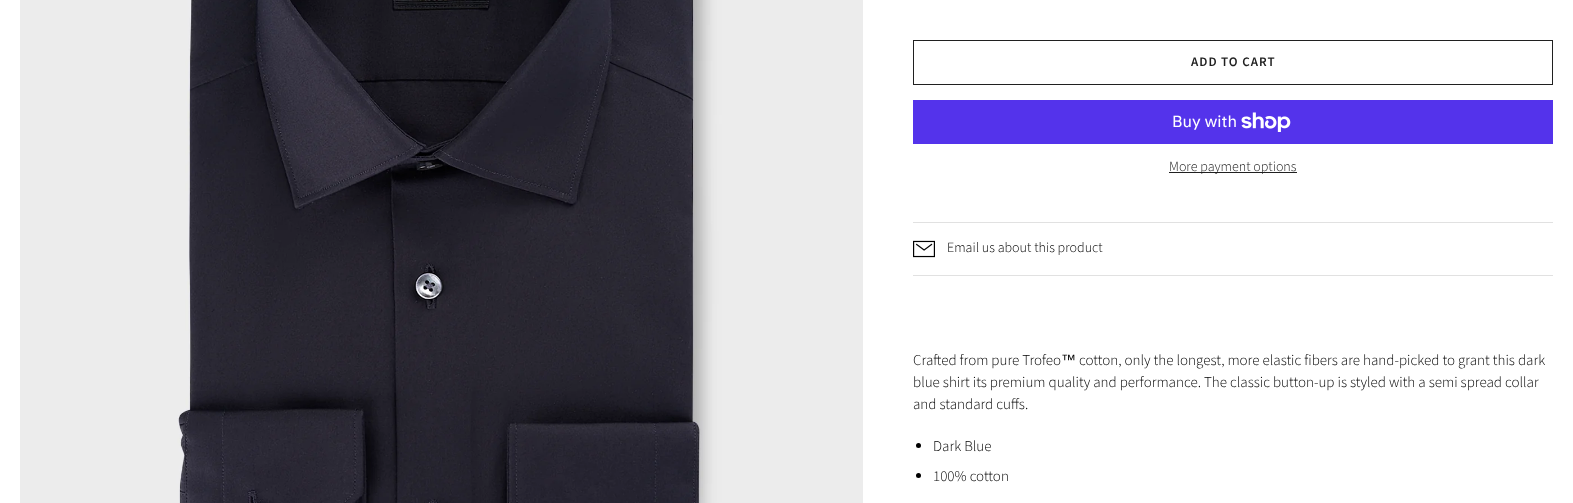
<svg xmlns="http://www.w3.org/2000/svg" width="1573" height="503">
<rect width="100%" height="100%" fill="#fff"/>
<image x="20" y="0" width="843" height="503" href="media/1.png"/>
<rect x="913" y="222" width="640" height="1" fill="#e1e1e1"/>
<rect x="913.5" y="40.5" width="639" height="44" fill="none" stroke="#202020"/>
<text x="1191" y="66" style="font-family:Source Sans Pro;font-size:13px;font-weight:600;letter-spacing:1px;fill:#202020">ADD TO CART</text>
<rect x="913" y="100" width="640" height="44" fill="#5433eb"/>
<text x="1172" y="127" style="font-family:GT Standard;font-size:16px;fill:#fff">Buy with</text>
<image x="1241" y="112" width="50" height="20" href="media/2.png"/>
<rect x="1169" y="172" width="128" height="1" fill="#202020"/>
<text x="1169" y="171" style="font-family:Source Sans Pro;font-size:14px;font-weight:300;fill:#202020">More payment options</text>
<rect x="913" y="275" width="640" height="1" fill="#e1e1e1"/>
<image x="913" y="240" width="22" height="18" href="media/3.png"/>
<text x="947" y="252" style="font-family:Source Sans Pro;font-size:14px;font-weight:300;fill:#000">Email us about this product</text>
<text x="913" y="365" style="font-family:Source Sans Pro;font-size:15px;font-weight:300;fill:#000">Crafted from pure Trofeo</text>
<text x="1061" y="365" style="font-family:Liberation Sans;font-size:15px;fill:#000">™</text>
<text x="1079" y="365" style="font-family:Source Sans Pro;font-size:15px;font-weight:300;fill:#000">cotton, only the longest, more elastic fibers are hand-picked to grant this dark</text>
<text x="913" y="387" style="font-family:Source Sans Pro;font-size:15px;font-weight:300;fill:#000">blue shirt its premium quality and performance. The classic button-up is styled with a semi spread collar</text>
<text x="913" y="409" style="font-family:Source Sans Pro;font-size:15px;font-weight:300;fill:#000">and standard cuffs.</text>
<circle cx="918.5" cy="445.5" r="2.5" fill="#000"/>
<text x="933" y="451" style="font-family:Source Sans Pro;font-size:15px;font-weight:300;fill:#000">Dark Blue</text>
<circle cx="918.5" cy="475.5" r="2.5" fill="#000"/>
<text x="933" y="481" style="font-family:Source Sans Pro;font-size:15px;font-weight:300;fill:#000">100% cotton</text>
</svg>
